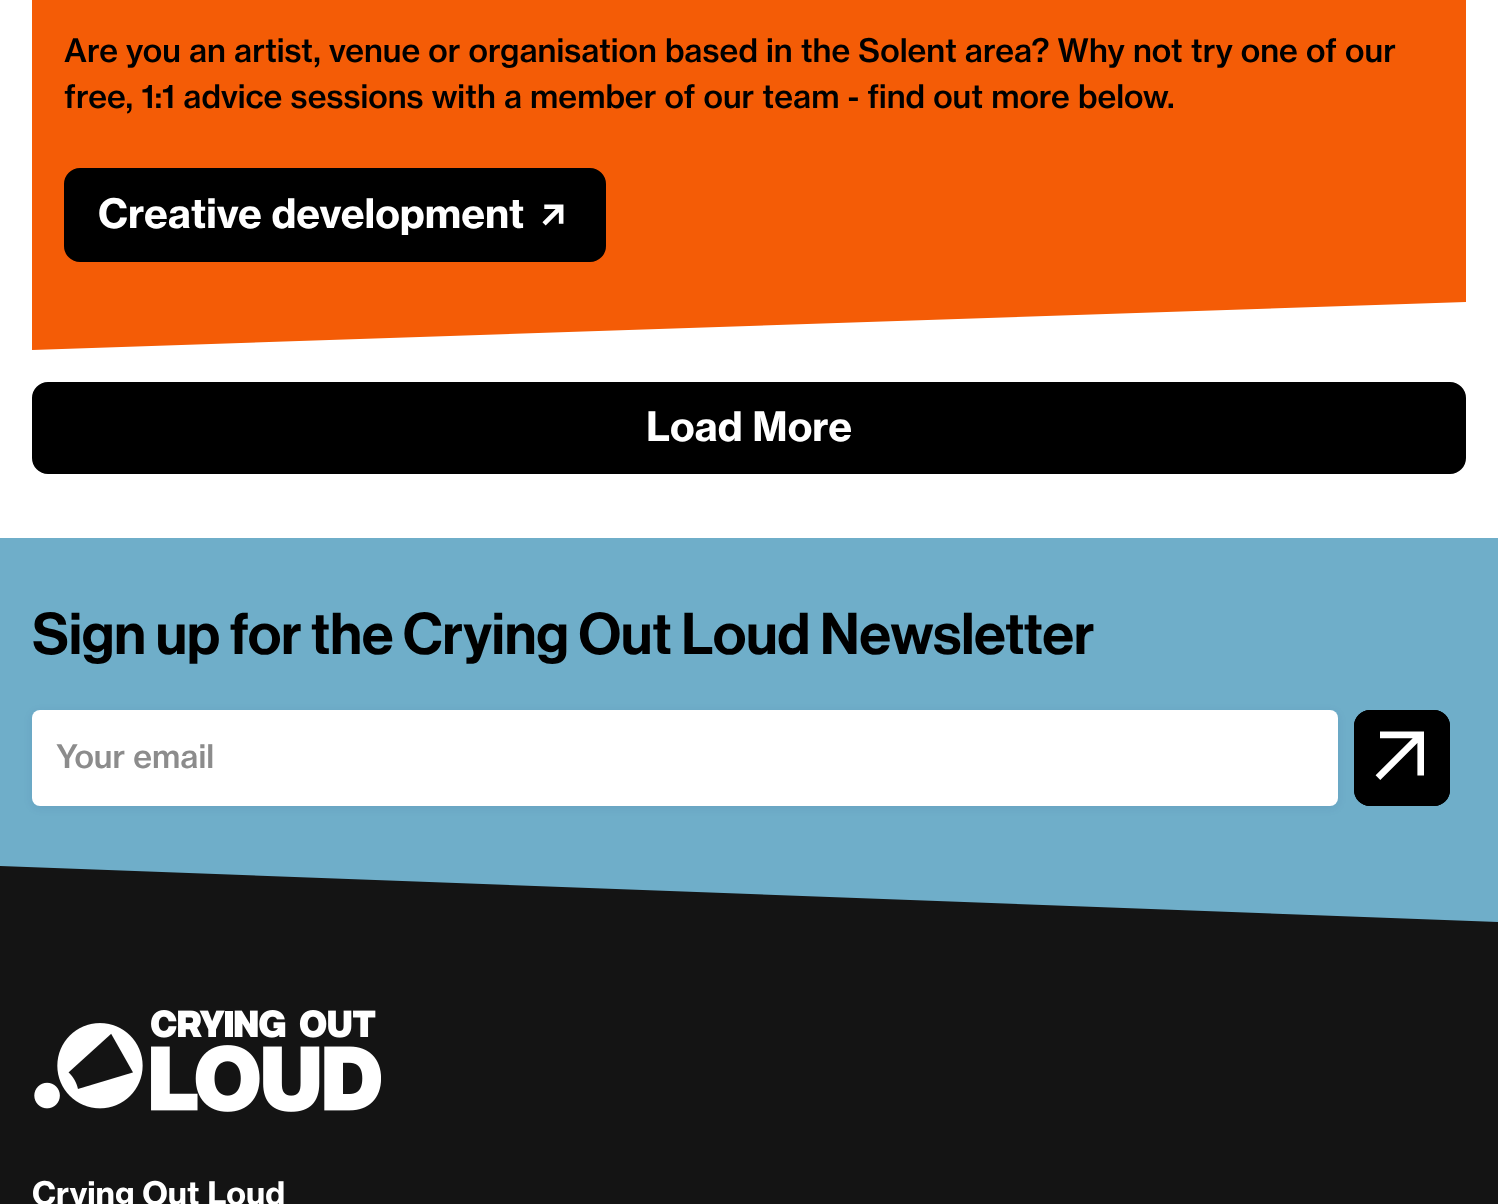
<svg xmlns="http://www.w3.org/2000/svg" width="1498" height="1204">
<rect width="100%" height="100%" fill="#fff"/>
<rect x="32" width="1434" height="302" fill="#f45c06"/>
<text x="64" y="62" style="font-family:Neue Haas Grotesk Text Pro;font-size:32px;font-weight:500;fill:#000">Are you an artist, venue or organisation based in the Solent area? Why not try one of our</text>
<text x="64" y="108" style="font-family:Neue Haas Grotesk Text Pro;font-size:32px;font-weight:500;fill:#000">free, 1:1 advice sessions with a member of our team - find out more below.</text>
<rect x="65" y="169" width="540" height="92" rx="15" fill="#000" stroke="#000" stroke-width="2"/>
<text x="98" y="228" style="font-family:Neue Haas Grotesk Text Pro;font-size:40px;font-weight:bold;fill:#fff">Creative development</text>
<image x="542" y="204" width="22" height="22" href="media/1.png"/>
<path d="M32 350v-48h1434" fill="#f45c06"/>
<rect x="33" y="383" width="1432" height="90" rx="15" fill="#000" stroke="#000" stroke-width="2"/>
<text x="646" y="441" style="font-family:Neue Haas Grotesk Text Pro;font-size:40px;font-weight:bold;fill:#fff">Load More</text>
<rect y="866" width="1498" height="338" fill="#141414"/>
<rect y="538" width="1498" height="328" fill="#6faec9"/>
<text x="32" y="654" style="font-family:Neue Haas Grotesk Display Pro;font-size:57.75px;font-weight:500;fill:#000">Sign up for the Crying Out Loud Newsletter</text>
<rect x="32" y="712" width="1306" height="96" rx="8" fill="#12196114" filter="blur(4px)"/>
<rect x="32" y="710" width="1306" height="96" rx="8" fill="#fff"/>
<text x="56" y="768" style="font-family:Neue Haas Grotesk Text Pro;font-size:32px;font-weight:500;fill:#8c8c8c">Your email</text>
<rect x="1354" y="710" width="96" height="96" rx="16" fill="#000"/>
<image x="1375" y="731" width="49" height="49" href="media/2.png"/>
<rect x="1356" y="712" width="92" height="92" rx="14" fill="none" stroke="#000" stroke-width="4"/>
<path d="M1498 866h-1498l1498 56" fill="#6faec9"/>
<image x="34" y="1010" width="347" height="102" href="media/3.png"/>
<text x="32" y="1205" style="font-family:Neue Haas Grotesk Text Pro;font-size:32px;font-weight:bold;fill:#fff">Crying Out Loud</text>
</svg>
